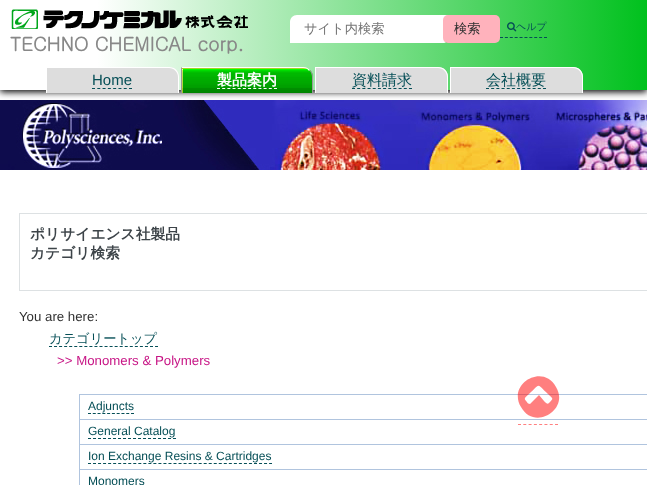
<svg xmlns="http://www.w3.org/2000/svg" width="647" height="485">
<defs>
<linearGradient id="g1" gradientUnits="userSpaceOnUse" x1="0" y1="45" x2="647" y2="45"><stop offset="0.15" stop-color="#fff"/><stop offset="1" stop-color="#00c11d"/></linearGradient>
</defs>
<rect width="100%" height="100%" fill="#fff"/>
<rect y="2" width="647" height="90" fill="#000" filter="blur(3.5px)"/>
<rect width="647" height="90" fill="url(#g1)"/>
<path d="M297 15h151v23c0 3-2 5-5 5h-153v-21c0-4 3-7 7-7z" fill="#fff"/>
<text x="304" y="33" style="font-family:WenQuanYi Zen Hei;font-size:13.25px;font-weight:500;fill:#757575">サイト内検索</text>
<rect x="443" y="15" width="57" height="28" rx="5" fill="#ffb2bc"/>
<text x="454" y="33" style="font-family:WenQuanYi Zen Hei;font-size:13.25px;font-weight:500;fill:#303030">検索</text>
<path d="M500 37.5h47" fill="none" stroke="#054e56" stroke-dasharray="3 1.89"/>
<image x="507" y="22" width="10" height="10" href="media/1.png"/>
<text x="516" y="30" style="font-family:WenQuanYi Zen Hei;font-size:10px;font-weight:500;fill:#054e56">ヘルプ</text>
<path d="M46 67h123c5.5 0 10 4.5 10 10v16h-133z" fill="#ddd"/>
<path d="M46 67h123c6 0 10 4 10 10v16h-133zm1 1h122c5 0 9 4 9 9v16h-131z" fill="#fff" fill-rule="evenodd"/>
<text x="92" y="85" style="font-family:Liberation Sans;font-size:15px;fill:#054e56">Home</text>
<path d="M92 88.5h40" fill="none" stroke="#054e56" stroke-dasharray="3 2.29"/>
<image x="181" y="67" width="132" height="26" href="media/2.png"/>
<path d="M181 67l1 1h121c3 0 5 1 6 3l1-1c-2-2-4-3-7-3z" fill="#fff"/>
<path d="M312 93h1v-16c0-3-1-5.5-3-7l-.5 .5c1.5 1.5 2.5 4 2.5 6.5z" fill="#999"/>
<path d="M181 67v26h1v-25z" fill="#999"/>
<text x="217" y="85" style="font-family:WenQuanYi Zen Hei;font-size:15px;font-weight:bold;fill:#fff">製品案内</text>
<path d="M217 88.5h60" fill="none" stroke="#fff" stroke-dasharray="3 2.18"/>
<path d="M315 67h123c5.5 0 10 4.5 10 10v16h-133z" fill="#ddd"/>
<path d="M315 67h123c6 0 10 4 10 10v16h-133zm1 1h122c5 0 9 4 9 9v16h-131z" fill="#fff" fill-rule="evenodd"/>
<text x="352" y="85" style="font-family:WenQuanYi Zen Hei;font-size:15px;font-weight:500;fill:#054e56">資料請求</text>
<path d="M352 88.5h60" fill="none" stroke="#054e56" stroke-dasharray="3 2.18"/>
<path d="M450 67h123c5.5 0 10 4.5 10 10v16h-133z" fill="#ddd"/>
<path d="M450 67h123c6 0 10 4 10 10v16h-133zm1 1h122c5 0 9 4 9 9v16h-131z" fill="#fff" fill-rule="evenodd"/>
<text x="486" y="85" style="font-family:WenQuanYi Zen Hei;font-size:15px;font-weight:500;fill:#054e56">会社概要</text>
<path d="M486 88.5h60" fill="none" stroke="#054e56" stroke-dasharray="3 2.18"/>
<image x="11" y="9" width="237" height="20" href="media/3.png"/>
<text x="10" y="51" style="font-family:Gulim;font-size:19px;font-weight:bold;fill:#888">TECHNO CHEMICAL corp.</text>
<image x="0" y="100" width="647" height="70" href="media/4.png"/>
<rect x="19.5" y="213.5" width="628" height="77" fill="none" stroke="#dde1e3"/>
<text x="30" y="239" style="font-family:WenQuanYi Zen Hei;font-size:14.75px;font-weight:bold;fill:#3d4449">ポリサイエンス社製品</text>
<text x="30" y="258" style="font-family:WenQuanYi Zen Hei;font-size:14.75px;font-weight:bold;fill:#3d4449">カテゴリ検索</text>
<text x="19" y="321" style="font-family:Liberation Sans;font-size:13.25px;fill:#303030">You are here:</text>
<text x="49" y="343" style="font-family:WenQuanYi Zen Hei;font-size:13.25px;font-weight:500;fill:#054e56">カテゴリートップ</text>
<path d="M49 346.5h109" fill="none" stroke="#054e56" stroke-dasharray="3 2.05"/>
<text x="57" y="365" style="font-family:Liberation Sans;font-size:13.25px;fill:#c71585">&gt;&gt; Monomers &amp; Polymers</text>
<rect x="79" y="394" width="568" height="1" fill="#b0c4de"/>
<rect x="79" y="419" width="568" height="1" fill="#b0c4de"/>
<rect x="79" y="444" width="568" height="1" fill="#b0c4de"/>
<rect x="79" y="469" width="568" height="1" fill="#b0c4de"/>
<rect x="79" y="469" width="1" height="16" fill="#b0c4de"/>
<rect x="79" y="444" width="1" height="26" fill="#b0c4de"/>
<rect x="79" y="419" width="1" height="26" fill="#b0c4de"/>
<rect x="79" y="394" width="1" height="26" fill="#b0c4de"/>
<text x="88" y="410" style="font-family:Liberation Sans;font-size:12px;fill:#054e56">Adjuncts</text>
<path d="M88 413.5h46" fill="none" stroke="#054e56" stroke-dasharray="3 1.78"/>
<text x="88" y="435" style="font-family:Liberation Sans;font-size:12px;fill:#054e56">General Catalog</text>
<path d="M88 438.5h88" fill="none" stroke="#054e56" stroke-dasharray="3 2"/>
<text x="88" y="460" style="font-family:Liberation Sans;font-size:12px;fill:#054e56">Ion Exchange Resins &amp; Cartridges</text>
<path d="M88 463.5h184" fill="none" stroke="#054e56" stroke-dasharray="3 2.03"/>
<text x="88" y="485" style="font-family:Liberation Sans;font-size:12px;fill:#054e56">Monomers</text>
<path d="M518 424.5h40" fill="none" stroke="#ff8080" stroke-dasharray="3 2.29"/>
<path d="M549 403c5-5 4-4-1-9c-12-11-7-11-19 0c-4 4-6 4-2 8c0 1 2 2 3 2l9-9l5 6c1 1 3 4 5 2zm7-16c14 23-22 44-35 20c-14-23 22-44 35-20z" fill="#ff000080"/>
</svg>
